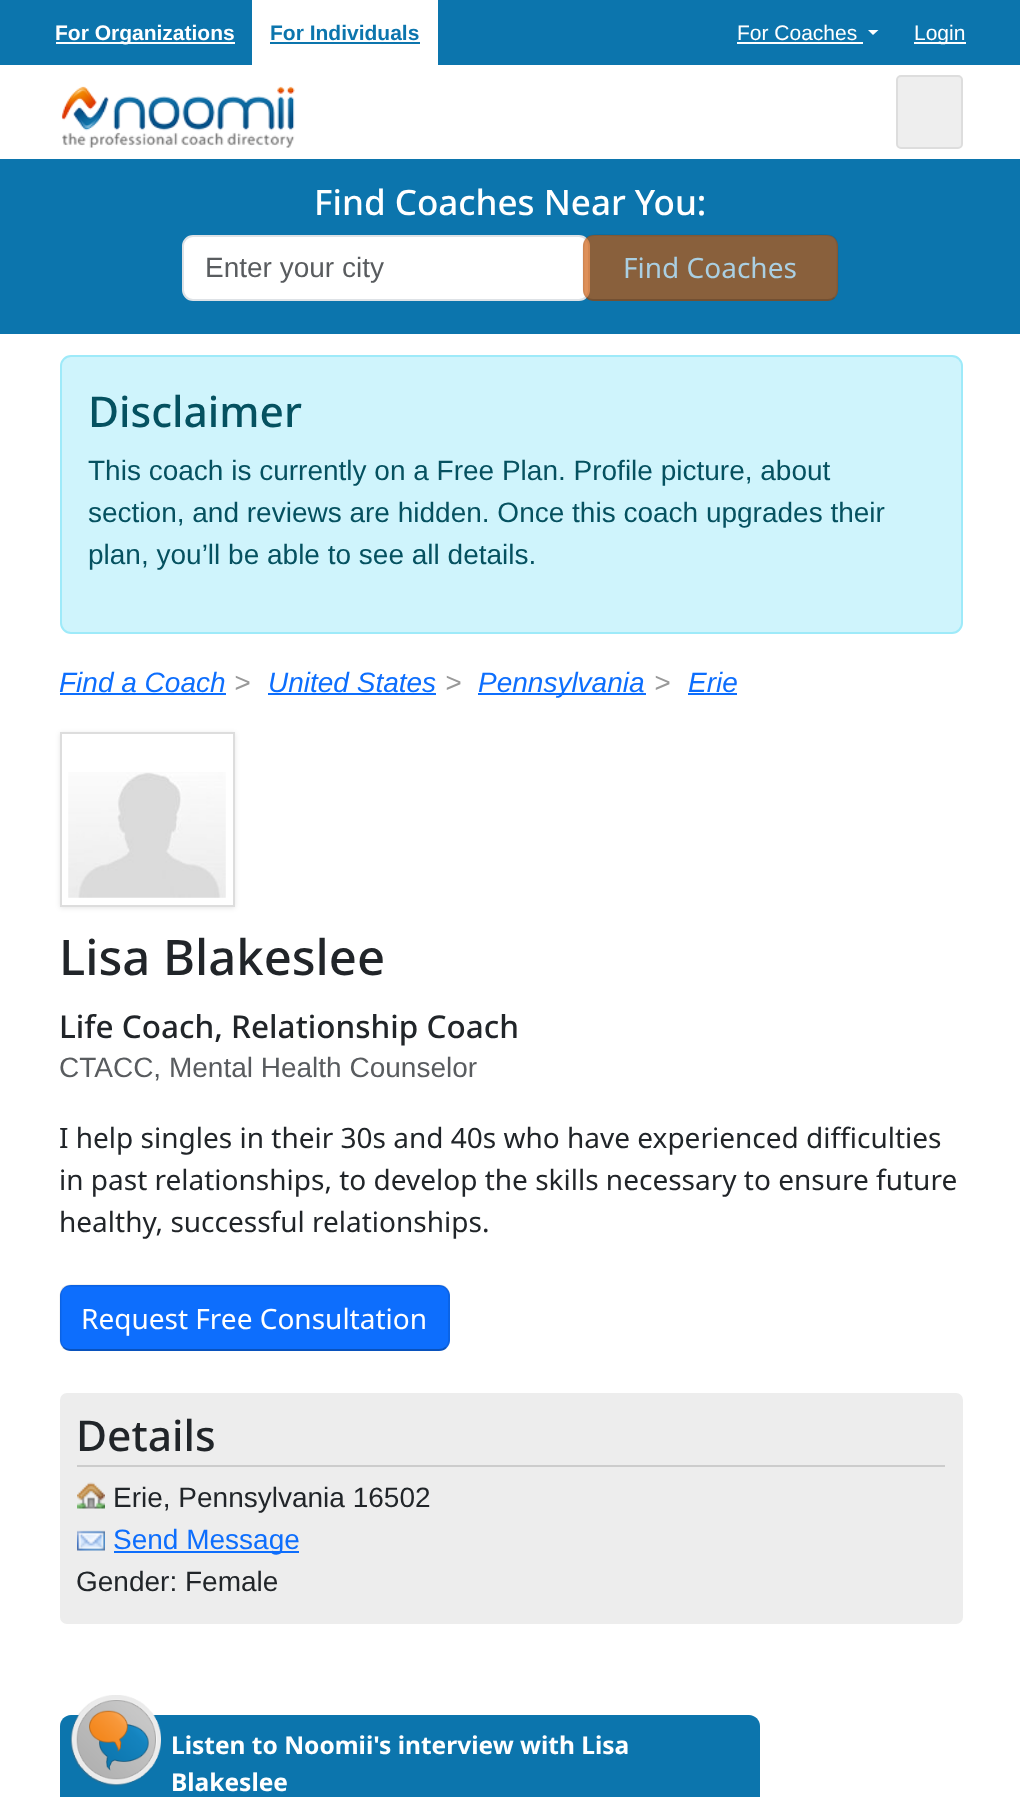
<svg xmlns="http://www.w3.org/2000/svg" width="1020" height="1797">
<rect width="100%" height="100%" fill="#fff"/>
<rect width="1020" height="65" fill="#0c75ad"/>
<rect x="56" y="42" width="179" height="2" fill="#fff"/>
<text x="55" y="40" style="font-family:Liberation Sans;font-size:21px;font-weight:bold;fill:#fff">For Organizations</text>
<rect x="252" width="186" height="65" fill="#fff"/>
<text x="270" y="40" style="font-family:Liberation Sans;font-size:21px;font-weight:bold;fill:#0c75ad">For Individuals</text>
<rect x="270" y="42" width="150" height="2" fill="#0c75ad"/>
<text x="737" y="40" style="font-family:Liberation Sans;font-size:21px;fill:#fff">For Coaches</text>
<rect x="737" y="42" width="126" height="2" fill="#fff"/>
<path d="M868 30h10.5l-5.5 5z" fill="#fff"/>
<rect x="914" y="42" width="52" height="2" fill="#fff"/>
<text x="914" y="40" style="font-family:Liberation Sans;font-size:21px;fill:#fff">Login</text>
<image x="61" y="86" width="234" height="62" href="media/1.png"/>
<rect x="897" y="76" width="65" height="72" rx="4" fill="#eee" stroke="#ddd" stroke-width="2"/>
<rect y="159" width="1020" height="175" fill="#0c75ad"/>
<text x="314" y="215" style="font-family:Noto Sans;font-size:35px;font-weight:500;fill:#fff">Find Coaches Near You:</text>
<rect x="183" y="236" width="406" height="64" rx="10" fill="#fff" stroke="#dee2e6" stroke-width="2"/>
<text x="205" y="277" style="font-family:Liberation Sans;font-size:28px;fill:#595c5f">Enter your city</text>
<rect x="583" y="235" width="255" height="66" rx="11" fill="#cd5500a6"/>
<path d="M834.5 297.5c-1.5 1.5-4 2.5-6.5 2.5h-235c-2.5 0-5-1-6.5-2.5" fill="none" stroke="#00000029" stroke-width="1.8"/>
<path d="M586.5 297.5c-4-4-3-9.5-3-14.5v-7.5c0-49-6-40 49-40h156c55 0 49-9 49 40v7.5c0 5 1 10.5-3 14.5" fill="none" stroke="#00000012" stroke-width="1.8"/>
<text x="623" y="278" style="font-family:Noto Sans;font-size:28px;fill:#aacfe2">Find Coaches</text>
<rect x="61" y="356" width="901" height="277" rx="10" fill="#cff4fc" stroke="#9eeaf9" stroke-width="2"/>
<text x="88" y="427" style="font-family:Noto Sans;font-size:42.5px;font-weight:500;fill:#055160">Disclaimer</text>
<text x="88" y="480" style="font-family:Liberation Sans;font-size:28px;fill:#055160">This coach is currently on a Free Plan. Profile picture, about</text>
<text x="88" y="522" style="font-family:Liberation Sans;font-size:28px;fill:#055160">section, and reviews are hidden. Once this coach upgrades their</text>
<text x="88" y="564" style="font-family:Liberation Sans;font-size:28px;fill:#055160">plan, you’ll be able to see all details.</text>
<text x="59" y="692" style="font-family:Liberation Sans;font-size:28px;font-style:italic;fill:#0d6efd">Find a Coach</text>
<rect x="60" y="693" width="166" height="2" fill="#0d6efd"/>
<text x="234" y="692" style="font-family:Liberation Sans;font-size:28px;font-style:italic;fill:#999">&gt;</text>
<text x="268" y="692" style="font-family:Liberation Sans;font-size:28px;font-style:italic;fill:#0d6efd">United States</text>
<rect x="268" y="693" width="168" height="2" fill="#0d6efd"/>
<text x="445" y="692" style="font-family:Liberation Sans;font-size:28px;font-style:italic;fill:#999">&gt;</text>
<rect x="478" y="693" width="168" height="2" fill="#0d6efd"/>
<text x="478" y="692" style="font-family:Liberation Sans;font-size:28px;font-style:italic;fill:#0d6efd">Pennsylvania</text>
<text x="654" y="692" style="font-family:Liberation Sans;font-size:28px;font-style:italic;fill:#999">&gt;</text>
<text x="688" y="692" style="font-family:Liberation Sans;font-size:28px;font-style:italic;fill:#0d6efd">Erie</text>
<rect x="688" y="693" width="49" height="2" fill="#0d6efd"/>
<rect x="60" y="733" width="175" height="175" fill="#0000001a" filter="blur(2.5px)"/>
<rect x="61" y="733" width="173" height="173" fill="#fff" stroke="#ddd" stroke-width="2"/>
<image x="68" y="772" width="158" height="126" href="media/2.png"/>
<text x="59" y="975" style="font-family:Noto Sans;font-size:49px;font-weight:500;fill:#212529">Lisa Blakeslee</text>
<text x="59" y="1038" style="font-family:Noto Sans;font-size:31.5px;font-weight:500;fill:#212529">Life Coach, Relationship Coach</text>
<text x="59" y="1077" style="font-family:Liberation Sans;font-size:28px;fill:#595c5f">CTACC, Mental Health Counselor</text>
<text x="59" y="1148" style="font-family:Noto Sans;font-size:28px;fill:#212529">I help singles in their 30s and 40s who have experienced difficulties</text>
<text x="59" y="1190" style="font-family:Noto Sans;font-size:28px;fill:#212529">in past relationships, to develop the skills necessary to ensure future</text>
<text x="59" y="1232" style="font-family:Noto Sans;font-size:28px;fill:#212529">healthy, successful relationships.</text>
<rect x="60" y="1285" width="390" height="66" rx="11" fill="#0d6efd"/>
<path d="M446 1347.5c-1.5 1.5-4 2.5-7 2.5h-369c-2.5 0-5-1-7-2.5" fill="none" stroke="#00000040" stroke-width="1.8"/>
<path d="M63 1347.5c-1.5-2-2.5-4.5-2.5-7v-45.5c0-2.5 1-5 2.5-7c2-1.5 4.5-2.5 7-2.5h369c3 0 5.5 1 7 2.5c2 2 3 4.5 3 7v45.5c0 2.5-1 5-3 7" fill="none" stroke="#0000001a" stroke-width="1.8"/>
<text x="81" y="1329" style="font-family:Noto Sans;font-size:28px;fill:#fff">Request Free Consultation</text>
<rect x="60" y="1393" width="903" height="231" rx="7" fill="#ededed"/>
<rect x="77" y="1465" width="868" height="2" fill="#ccc"/>
<text x="76" y="1451" style="font-family:Noto Sans;font-size:42.5px;font-weight:500;fill:#212529">Details</text>
<image x="77" y="1482" width="28" height="27" href="media/3.png"/>
<text x="113" y="1507" style="font-family:Liberation Sans;font-size:28px;fill:#212529">Erie, Pennsylvania 16502</text>
<image x="77" y="1530" width="28" height="21" href="media/4.png"/>
<rect x="114" y="1551" width="185" height="2" fill="#0d6efd"/>
<text x="113" y="1549" style="font-family:Liberation Sans;font-size:28px;fill:#0d6efd">Send Message</text>
<text x="76" y="1591" style="font-family:Liberation Sans;font-size:28px;fill:#212529">Gender: Female</text>
<path d="M71 1715h678c6 0 11 5 11 11v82h-700v-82c0-6 5-11 11-11z" fill="#0c75ad"/>
<image x="70" y="1695" width="91" height="91" href="media/5.png"/>
<text x="171" y="1754" style="font-family:Noto Sans;font-size:24.5px;font-weight:bold;fill:#fff">Listen to Noomii's interview with Lisa</text>
<text x="171" y="1791" style="font-family:Noto Sans;font-size:24.5px;font-weight:bold;fill:#fff">Blakeslee</text>
</svg>
